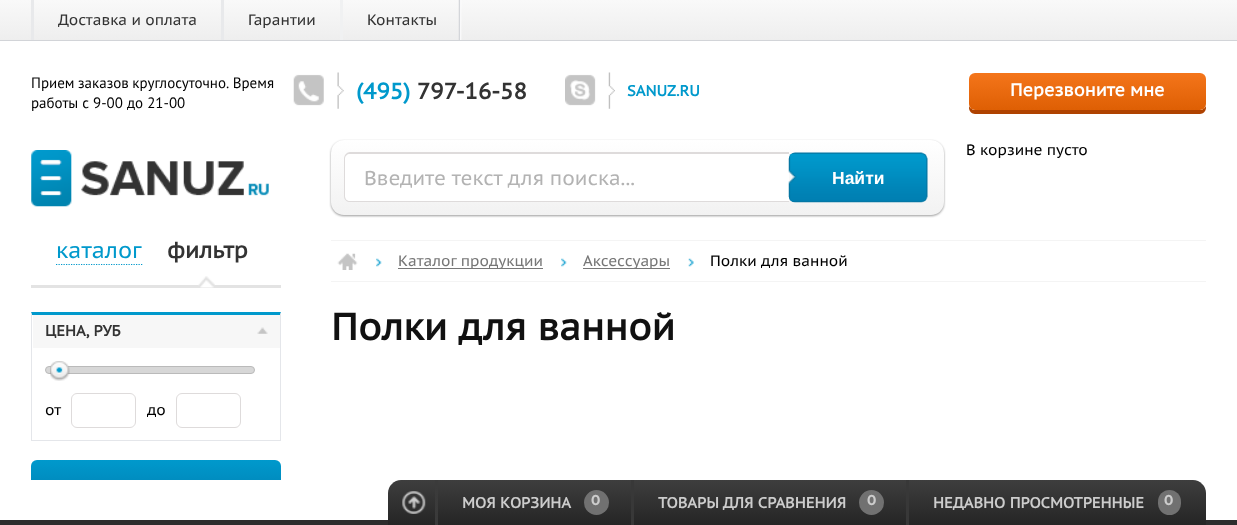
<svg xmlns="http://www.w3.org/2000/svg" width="1237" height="525">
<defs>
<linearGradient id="g1" gradientUnits="userSpaceOnUse" x1="619" y1="0" x2="619" y2="40"><stop offset="0" stop-color="#f9f9f9"/><stop offset="1" stop-color="#eee"/></linearGradient>
<linearGradient id="g2" gradientUnits="userSpaceOnUse" x1="1088" y1="72" x2="1088" y2="110"><stop offset="0" stop-color="#f5761b"/><stop offset="1" stop-color="#de5f04"/></linearGradient>
<linearGradient id="g3" gradientUnits="userSpaceOnUse" x1="638" y1="140" x2="638" y2="215"><stop offset="0" stop-color="#fff"/><stop offset="1" stop-color="#f2f2f2"/></linearGradient>
<linearGradient id="g4" gradientUnits="userSpaceOnUse" x1="156" y1="460" x2="156" y2="498"><stop offset="0" stop-color="#09c"/><stop offset="1" stop-color="#0082b5"/></linearGradient>
<linearGradient id="g5" gradientUnits="userSpaceOnUse" x1="797" y1="480" x2="797" y2="525"><stop offset="0" stop-color="#3e3e3e"/><stop offset="1" stop-color="#252525"/></linearGradient>
<linearGradient id="g6" gradientUnits="userSpaceOnUse" x1="797" y1="480" x2="797" y2="525"><stop offset="0" stop-color="#3b3b3b"/><stop offset="1" stop-color="#3a3a3a"/></linearGradient>
</defs>
<rect width="100%" height="100%" fill="#fff"/>
<rect width="1237" height="40" fill="url(#g1)"/>
<rect y="40" width="1237" height="1" fill="#d2d4d8"/>
<image x="458" y="0" width="4" height="40" href="media/1.png"/>
<rect x="31" width="3" height="40" fill="#e8e9eb"/>
<text x="58" y="25" style="font-family:PT Sans Caption;font-size:15px;fill:#333">Доставка и оплата</text>
<rect x="221" width="3" height="40" fill="#e8e9eb"/>
<text x="248" y="25" style="font-family:PT Sans Caption;font-size:15px;fill:#333">Гарантии</text>
<rect x="340" width="3" height="40" fill="#f0f1f2"/>
<text x="367" y="25" style="font-family:PT Sans Caption;font-size:15px;fill:#333">Контакты</text>
<text x="31" y="88" word-spacing="-0.5" style="font-family:PT Sans;font-size:15px;fill:#000">Прием заказов круглосуточно. Время</text>
<text x="31" y="108" style="font-family:PT Sans;font-size:15px;fill:#000">работы с 9-00 до 21-00</text>
<image x="293" y="72" width="51" height="37" href="media/2.png"/>
<text x="356" y="99" style="font-family:PT Sans Caption;font-size:22.5px;font-weight:bold;fill:#09c">(495)</text>
<text x="417" y="99" style="font-family:PT Sans Caption;font-size:22.5px;font-weight:bold;fill:#333">797-16-58</text>
<image x="565" y="72" width="50" height="37" href="media/3.png"/>
<text x="627" y="96" style="font-family:PT Sans Caption;font-size:15px;font-weight:bold;fill:#09c">SANUZ.RU</text>
<path d="M969 106v2c0 3 3 6 6 6h225c3 0 6-3 6-6v-2c-1 2-3 4-6 4h-225c-3 0-5-2-6-4z" fill="#af4200"/>
<rect x="969" y="73" width="237" height="37" rx="6" fill="url(#g2)"/>
<text x="1010" y="96" style="font-family:PT Sans Caption;font-size:17.5px;font-weight:bold;fill:#fff">Перезвоните мне</text>
<image x="31" y="150" width="238" height="57" href="media/4.png"/>
<rect x="331" y="141" width="613" height="75" rx="13" fill="#999" filter="blur(1px)"/>
<rect x="331" y="140" width="613" height="75" rx="13" fill="url(#g3)"/>
<path d="M350 154h439v47h-439c-3 0-5-2-5-5v-37c0-3 2-5 5-5z" fill="#fff"/>
<path d="M350 152h439v50h-439c-3 0-6-2-6-6v-37c0-4 3-7 6-7zm0 2h439v47h-439c-3 0-5-2-5-5v-37c0-3 2-5 5-5z" fill="#dedbdb" fill-rule="evenodd"/>
<text x="364" y="185" style="font-family:PT Sans Caption;font-size:20px;fill:#b3b3b3">Введите текст для поиска...</text>
<image x="788" y="152" width="140" height="51" href="media/5.png"/>
<text x="832" y="184" style="font-family:Liberation Sans;font-size:17.5px;font-weight:bold;fill:#fff">Найти</text>
<text x="966" y="155" style="font-family:PT Sans Caption;font-size:15px;fill:#000">В корзине пусто</text>
<rect x="31" y="285" width="250" height="3" fill="#e3e3e3"/>
<text x="56" y="258" style="font-family:PT Sans Caption;font-size:22.5px;fill:#09c">каталог</text>
<path d="M56 264.5h86.5" fill="none" stroke="#09c" stroke-width="1.2" stroke-dasharray="1.25 1.25"/>
<text x="167" y="258" style="font-family:PT Sans Caption;font-size:22.5px;font-weight:bold;fill:#333">фильтр</text>
<image x="198" y="276" width="17" height="12" href="media/6.png"/>
<path d="M31 312h250l-1 3h-248z" fill="#09c"/>
<path d="M281 312v129l-1-1v-125z" fill="#e4e6ea"/>
<rect x="31" y="440" width="250" height="1" fill="#e4e6ea"/>
<path d="M31 441v-129l1 3v125z" fill="#e4e6ea"/>
<rect x="33" y="315" width="247" height="33" fill="#f7f7f7"/>
<text x="45" y="336" style="font-family:PT Sans Caption;font-size:15px;font-weight:bold;fill:#333">ЦЕНА, РУБ</text>
<image x="257" y="327" width="11" height="7" href="media/7.png"/>
<rect x="45.5" y="366.5" width="209" height="7" rx="3.5" fill="#d7d7d7" stroke="#bababa"/>
<image x="50" y="361" width="20" height="20" href="media/8.png"/>
<image x="50" y="361" width="20" height="20" href="media/9.png"/>
<text x="45" y="415" style="font-family:PT Sans Caption;font-size:15px;fill:#000">от</text>
<rect x="71.5" y="393.5" width="64" height="34" rx="5.5" fill="none" stroke="#dedbdb"/>
<text x="147" y="415" style="font-family:PT Sans Caption;font-size:15px;fill:#000">до</text>
<rect x="176.5" y="393.5" width="64" height="34" rx="5.5" fill="none" stroke="#dedbdb"/>
<rect x="31" y="460" width="250" height="38" rx="6" fill="url(#g4)"/>
<rect x="331" y="240" width="875" height="1" fill="#f4f4f4"/>
<rect x="331" y="281" width="875" height="1" fill="#f4f4f4"/>
<image x="337" y="253" width="21" height="17" href="media/10.png"/>
<image x="376" y="258" width="6" height="9" href="media/11.png"/>
<rect x="398" y="268" width="145" height="1" fill="#777"/>
<text x="398" y="266" style="font-family:PT Sans Caption;font-size:15px;fill:#777">Каталог продукции</text>
<image x="561" y="258" width="6" height="9" href="media/11.png"/>
<rect x="583" y="268" width="87" height="1" fill="#777"/>
<text x="583" y="266" style="font-family:PT Sans Caption;font-size:15px;fill:#777">Аксессуары</text>
<image x="688" y="258" width="6" height="9" href="media/12.png"/>
<text x="710" y="266" style="font-family:PT Sans Caption;font-size:15px;fill:#000">Полки для ванной</text>
<text x="331" y="340" style="font-family:PT Sans Caption;font-size:37.5px;font-weight:bold;fill:#111">Полки для ванной</text>
<rect x="31" y="480" width="250" height="18" fill="#fff"/>
<rect y="520" width="1237" height="5" fill="#2d2d2d"/>
<path d="M401 480h792c7 0 13 6 13 13v32h-818v-32c0-7 6-13 13-13z" fill="url(#g5)"/>
<rect x="435" y="480" width="3" height="45" fill="url(#g6)"/>
<image x="402" y="491" width="24" height="23" href="media/13.png"/>
<path d="M462.5 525.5h108.5" fill="none" stroke="#ccc" stroke-width="1.2" stroke-dasharray="1.25 1.25"/>
<text x="462" y="508" style="font-family:PT Sans Caption;font-size:15px;font-weight:bold;fill:#ccc">МОЯ КОРЗИНА</text>
<circle cx="596.5" cy="502.5" r="12.5" fill="#717171"/>
<text x="591" y="505" style="font-family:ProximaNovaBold;font-size:15px;font-weight:bold;fill:#ccc">0</text>
<rect x="631" y="480" width="3" height="45" fill="#383838"/>
<path d="M659 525.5h187" fill="none" stroke="#ccc" stroke-width="1.2" stroke-dasharray="1.25 1.25"/>
<text x="658" y="508" style="font-family:PT Sans Caption;font-size:15px;font-weight:bold;fill:#ccc">ТОВАРЫ ДЛЯ СРАВНЕНИЯ</text>
<circle cx="871.5" cy="502.5" r="12.5" fill="#717171"/>
<text x="867" y="505" style="font-family:ProximaNovaBold;font-size:15px;font-weight:bold;fill:#ccc">0</text>
<rect x="906" y="480" width="3" height="45" fill="#383838"/>
<path d="M934 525.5h211" fill="none" stroke="#ccc" stroke-width="1.2" stroke-dasharray="1.25 1.25"/>
<text x="933" y="508" style="font-family:PT Sans Caption;font-size:15px;font-weight:bold;fill:#ccc">НЕДАВНО ПРОСМОТРЕННЫЕ</text>
<rect x="1158" y="490" width="23" height="25" rx="11.5" fill="#717171"/>
<text x="1164" y="505" style="font-family:ProximaNovaBold;font-size:15px;font-weight:bold;fill:#ccc">0</text>
</svg>
